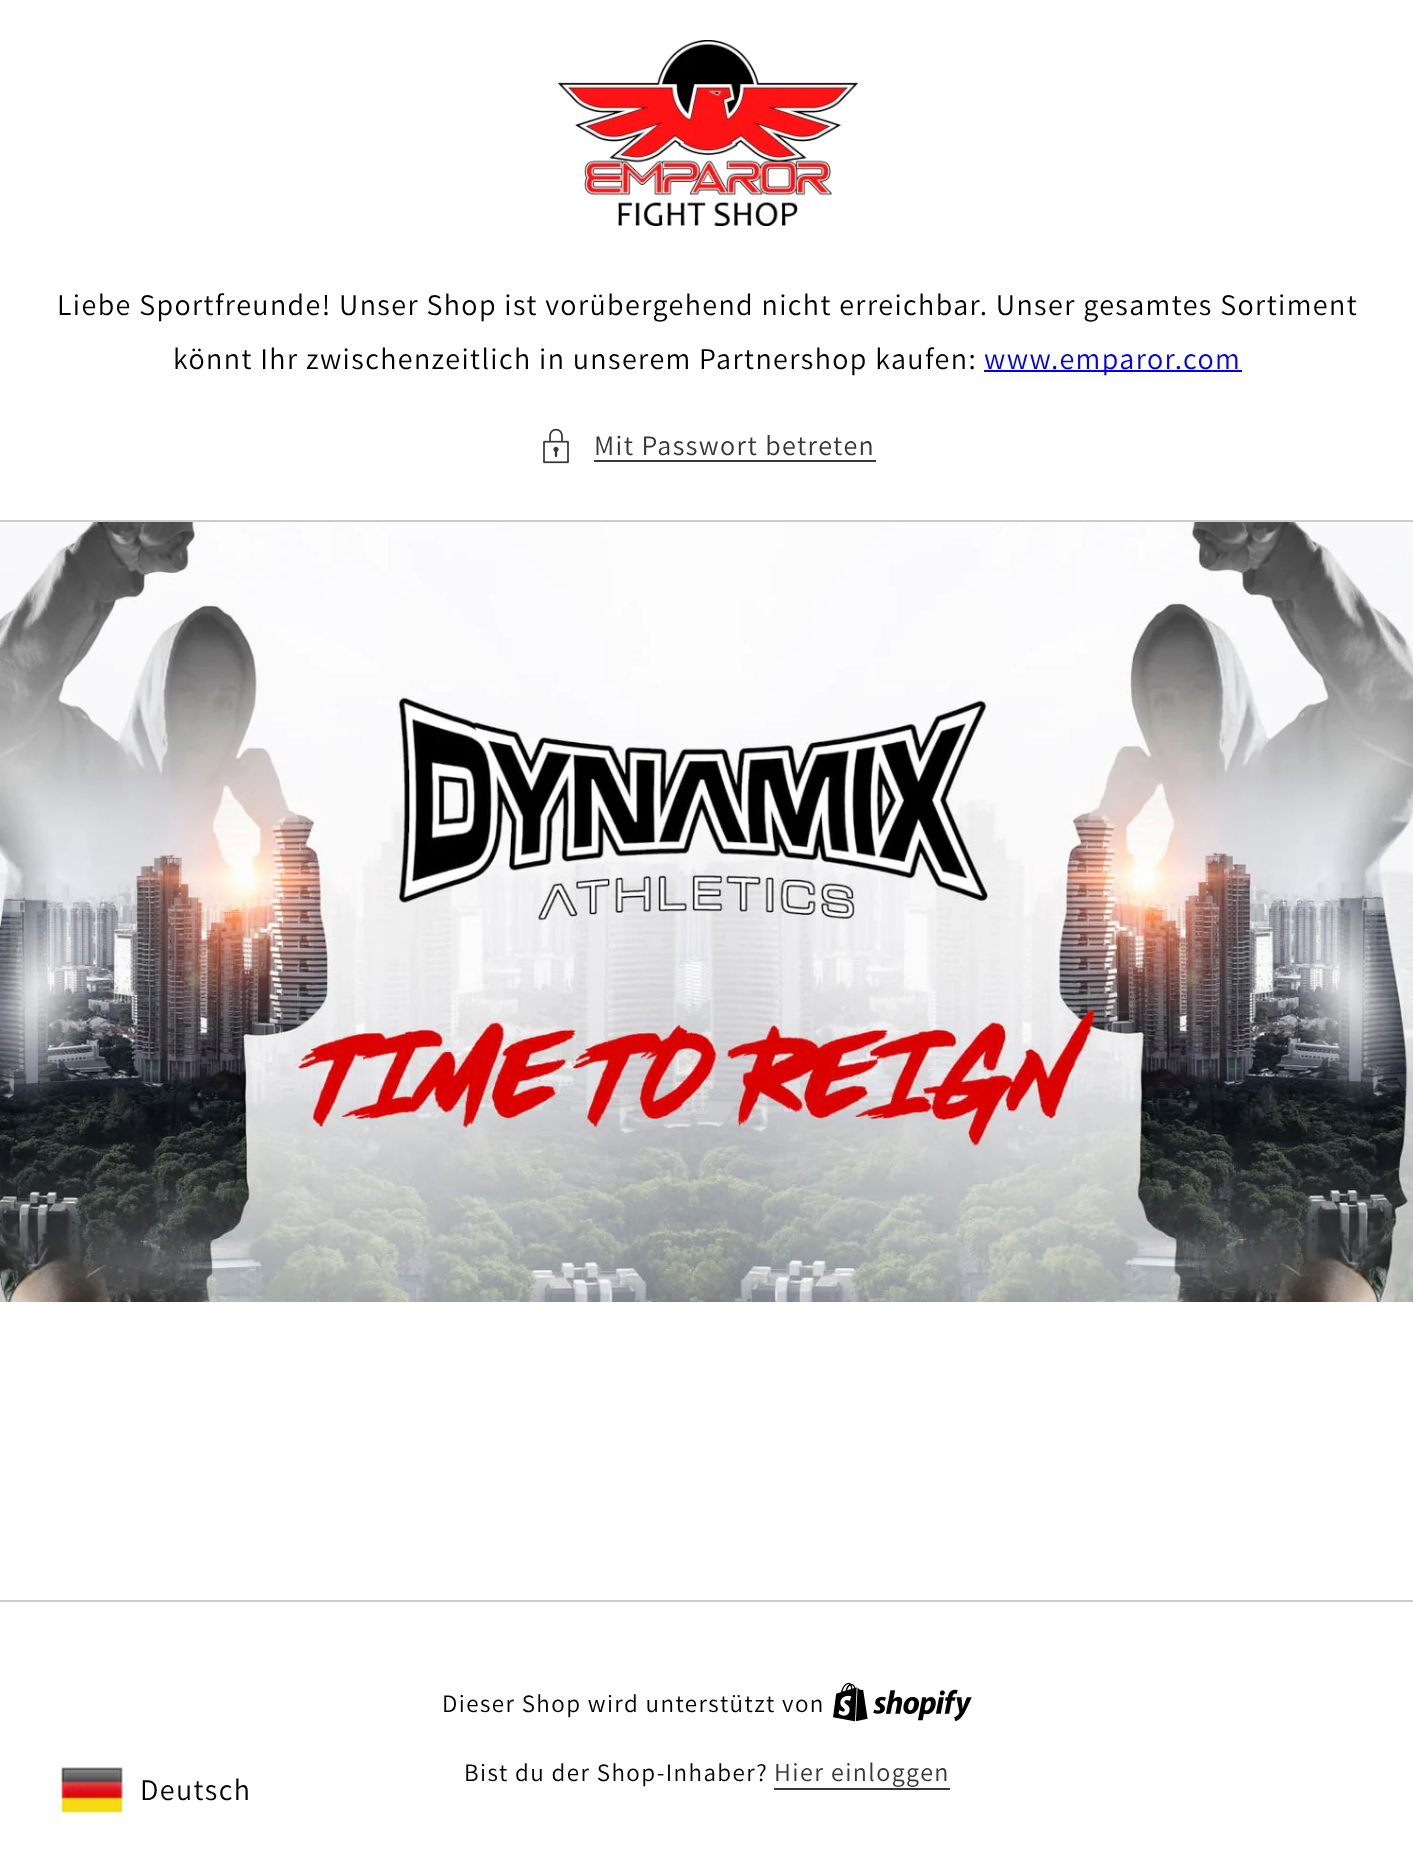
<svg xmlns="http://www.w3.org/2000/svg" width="1413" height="1875">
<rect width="100%" height="100%" fill="#fff"/>
<image x="558" y="40" width="300" height="186" href="media/1.png"/>
<text x="57" y="315" style="font-family:Assistant;font-size:30px;letter-spacing:1.4px;fill:#000">Liebe Sportfreunde! Unser Shop ist vorübergehend nicht erreichbar. Unser gesamtes Sortiment</text>
<text x="173" y="369" style="font-family:Assistant;font-size:30px;letter-spacing:1.4px;fill:#000">könnt Ihr zwischenzeitlich in unserem Partnershop kaufen:</text>
<rect x="984" y="370" width="258" height="2" fill="#00e"/>
<text x="984" y="369" style="font-family:Assistant;font-size:30px;letter-spacing:1.4px;fill:#00e">www.emparor.com</text>
<image x="543" y="428" width="26" height="36" href="media/2.png"/>
<text x="594" y="455" style="font-family:Assistant;font-size:28px;letter-spacing:1.4px;fill:#363636">Mit Passwort betreten</text>
<rect x="594" y="460" width="282" height="2" fill="#363636"/>
<rect y="520" width="1413" height="2" fill="#ccc"/>
<image x="0" y="522" width="1413" height="780" href="media/3.png"/>
<rect y="1600" width="1413" height="2" fill="#ccc"/>
<text x="442" y="1712" style="font-family:Assistant;font-size:25px;letter-spacing:1.4px;fill:#000">Dieser Shop wird unterstützt von</text>
<image x="833" y="1682" width="139" height="40" href="media/4.png"/>
<text x="464" y="1781" style="font-family:Assistant;font-size:25px;letter-spacing:1.4px;fill:#000">Bist du der Shop-Inhaber?</text>
<text x="774" y="1781" style="font-family:Assistant;font-size:26px;letter-spacing:1.4px;fill:#363636">Hier einloggen</text>
<rect x="774" y="1788" width="176" height="2" fill="#363636"/>
<image x="61" y="1767" width="62" height="46" href="media/5.png"/>
<text x="140" y="1800" style="font-family:Assistant;font-size:30px;letter-spacing:1.4px;fill:#000">Deutsch</text>
</svg>
